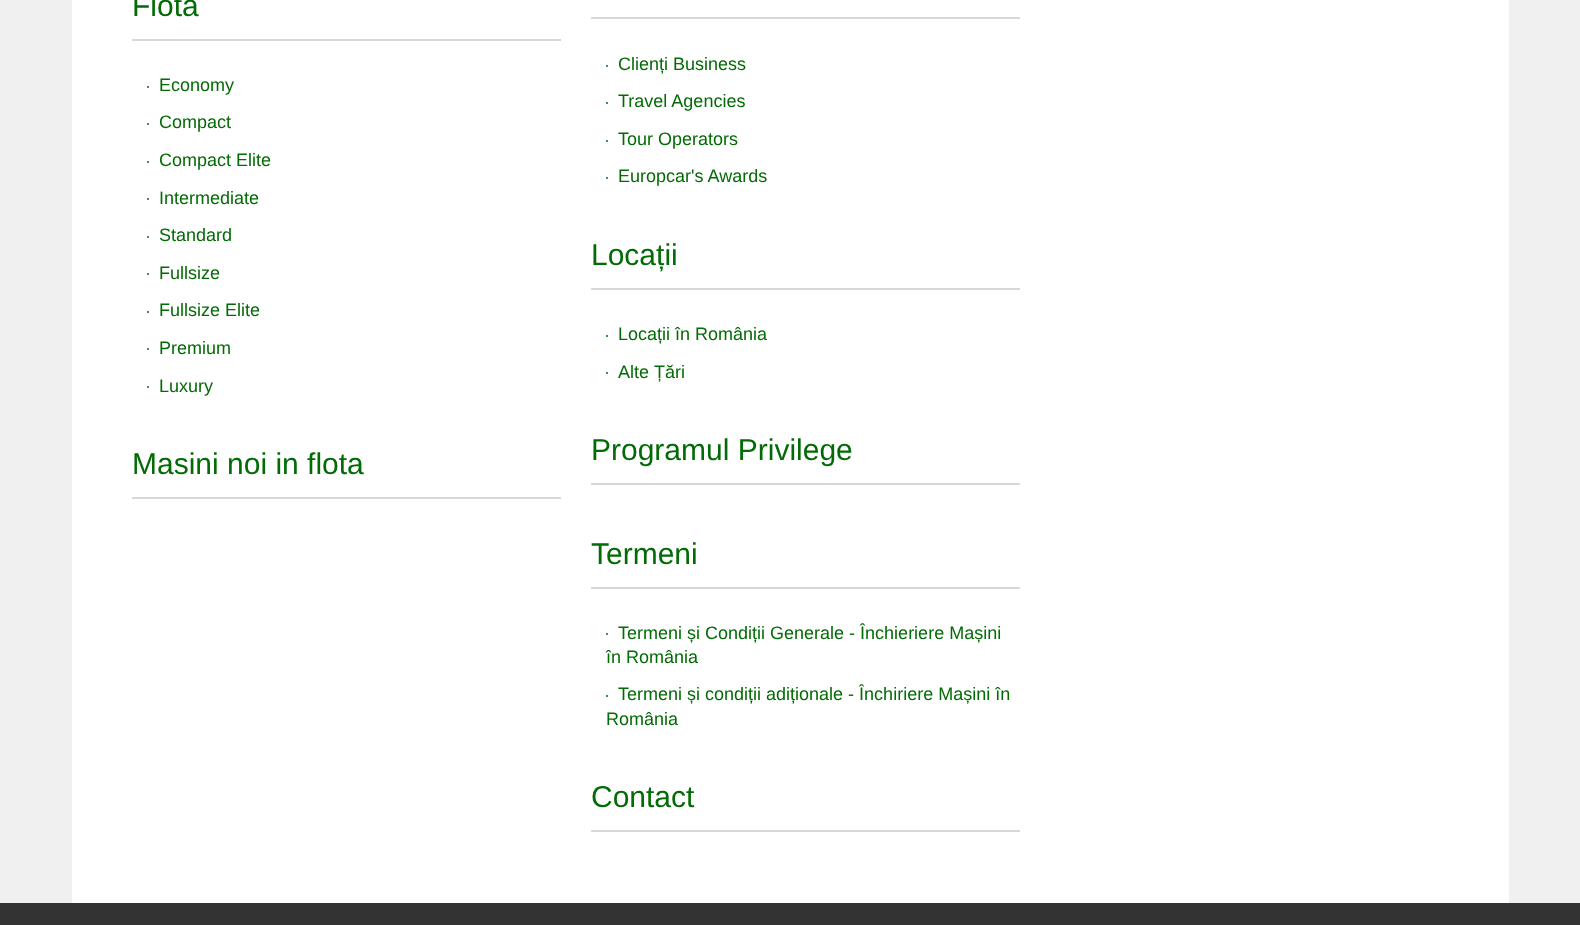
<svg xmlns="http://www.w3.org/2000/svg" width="1580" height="925">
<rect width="100%" height="100%" fill="#f0f0f0"/>
<rect x="72" width="1437" height="903" fill="#fff"/>
<rect x="132" y="39" width="429" height="2" fill="#d8d8d8"/>
<text x="132" y="16" style="font-family:Liberation Sans;font-size:30px;fill:#036b05">Flotă</text>
<circle cx="148" cy="87" r="1" fill="#036b05"/>
<text x="159" y="91" style="font-family:Liberation Sans;font-size:18px;fill:#036b05">Economy</text>
<circle cx="148" cy="124" r="1" fill="#036b05"/>
<text x="159" y="128" style="font-family:Liberation Sans;font-size:18px;fill:#036b05">Compact</text>
<circle cx="148" cy="162" r="1" fill="#036b05"/>
<text x="159" y="166" style="font-family:Liberation Sans;font-size:18px;fill:#036b05">Compact Elite</text>
<circle cx="148" cy="199" r="1" fill="#036b05"/>
<text x="159" y="204" style="font-family:Liberation Sans;font-size:18px;fill:#036b05">Intermediate</text>
<circle cx="148" cy="237" r="1" fill="#036b05"/>
<text x="159" y="241" style="font-family:Liberation Sans;font-size:18px;fill:#036b05">Standard</text>
<circle cx="148" cy="274" r="1" fill="#036b05"/>
<text x="159" y="279" style="font-family:Liberation Sans;font-size:18px;fill:#036b05">Fullsize</text>
<circle cx="148" cy="312" r="1" fill="#036b05"/>
<text x="159" y="316" style="font-family:Liberation Sans;font-size:18px;fill:#036b05">Fullsize Elite</text>
<circle cx="148" cy="349" r="1" fill="#036b05"/>
<text x="159" y="354" style="font-family:Liberation Sans;font-size:18px;fill:#036b05">Premium</text>
<circle cx="148" cy="387" r="1" fill="#036b05"/>
<text x="159" y="392" style="font-family:Liberation Sans;font-size:18px;fill:#036b05">Luxury</text>
<rect x="132" y="497" width="429" height="2" fill="#d8d8d8"/>
<text x="132" y="474" style="font-family:Liberation Sans;font-size:30px;fill:#036b05">Masini noi in flota</text>
<rect x="591" y="17" width="429" height="2" fill="#d8d8d8"/>
<circle cx="607" cy="66" r="1" fill="#036b05"/>
<text x="618" y="70" style="font-family:Liberation Sans;font-size:18px;fill:#036b05">Clienți Business</text>
<circle cx="607" cy="103" r="1" fill="#036b05"/>
<text x="618" y="107" style="font-family:Liberation Sans;font-size:18px;fill:#036b05">Travel Agencies</text>
<circle cx="607" cy="141" r="1" fill="#036b05"/>
<text x="618" y="145" style="font-family:Liberation Sans;font-size:18px;fill:#036b05">Tour Operators</text>
<circle cx="607" cy="178" r="1" fill="#036b05"/>
<text x="618" y="182" style="font-family:Liberation Sans;font-size:18px;fill:#036b05">Europcar's Awards</text>
<rect x="591" y="288" width="429" height="2" fill="#d8d8d8"/>
<text x="591" y="265" style="font-family:Liberation Sans;font-size:30px;fill:#036b05">Locații</text>
<circle cx="607" cy="336" r="1" fill="#036b05"/>
<text x="618" y="340" style="font-family:Liberation Sans;font-size:18px;fill:#036b05">Locații în România</text>
<circle cx="607" cy="373" r="1" fill="#036b05"/>
<text x="618" y="378" style="font-family:Liberation Sans;font-size:18px;fill:#036b05">Alte Țări</text>
<rect x="591" y="483" width="429" height="2" fill="#d8d8d8"/>
<text x="591" y="460" style="font-family:Liberation Sans;font-size:30px;fill:#036b05">Programul Privilege</text>
<rect x="591" y="587" width="429" height="2" fill="#d8d8d8"/>
<text x="591" y="564" style="font-family:Liberation Sans;font-size:30px;fill:#036b05">Termeni</text>
<circle cx="607" cy="634" r="1" fill="#036b05"/>
<text x="618" y="639" style="font-family:Liberation Sans;font-size:18px;fill:#036b05">Termeni și Condiții Generale - Închieriere Mașini</text>
<text x="606" y="663" style="font-family:Liberation Sans;font-size:18px;fill:#036b05">în România</text>
<circle cx="607" cy="696" r="1" fill="#036b05"/>
<text x="618" y="700" style="font-family:Liberation Sans;font-size:18px;fill:#036b05">Termeni și condiții adiționale - Închiriere Mașini în</text>
<text x="606" y="725" style="font-family:Liberation Sans;font-size:18px;fill:#036b05">România</text>
<rect x="591" y="830" width="429" height="2" fill="#d8d8d8"/>
<text x="591" y="807" style="font-family:Liberation Sans;font-size:30px;fill:#036b05">Contact</text>
<rect y="903" width="1580" height="22" fill="#333"/>
</svg>
